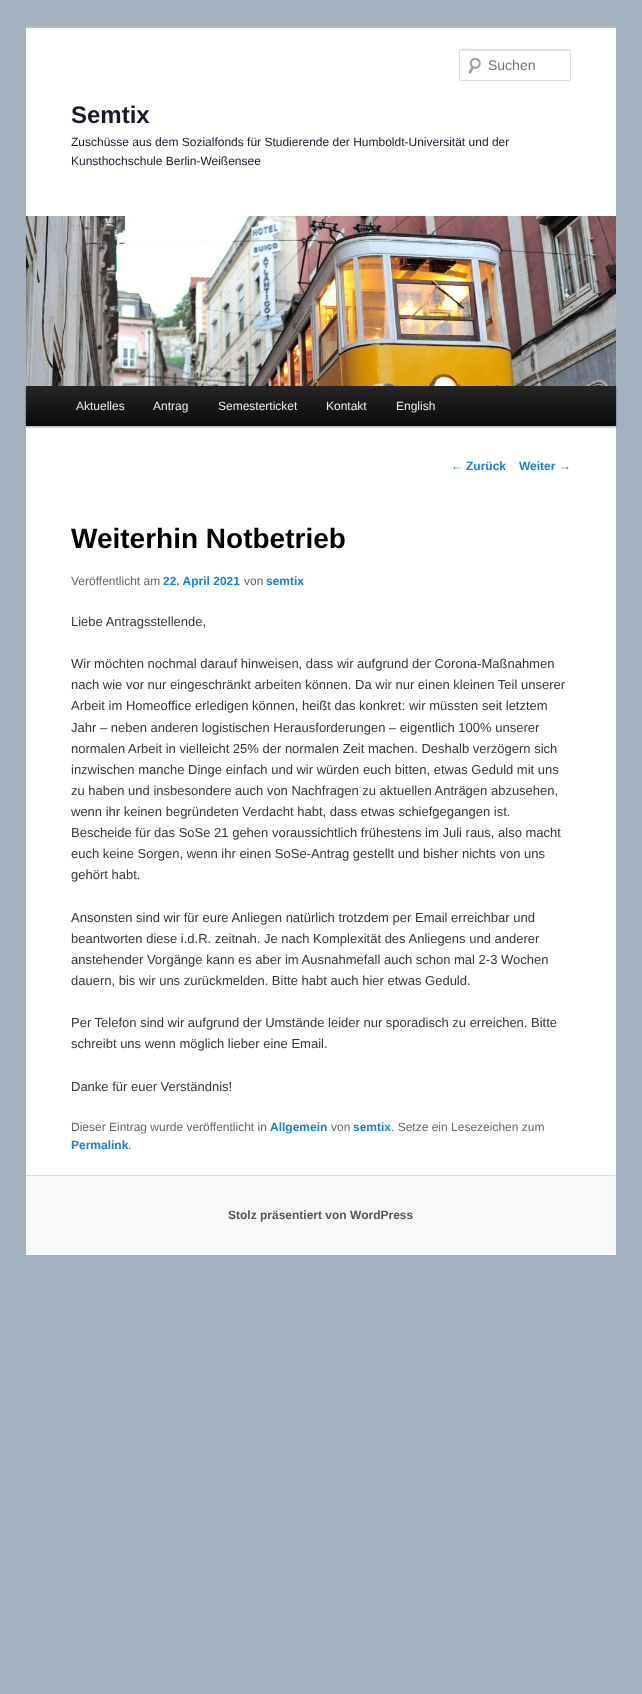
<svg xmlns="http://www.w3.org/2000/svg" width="642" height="1694">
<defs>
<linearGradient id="g1" gradientUnits="userSpaceOnUse" x1="321" y1="386" x2="321" y2="426"><stop offset="0" stop-color="#252525"/><stop offset="1" stop-color="#0a0a0a"/></linearGradient>
</defs>
<rect width="100%" height="100%" fill="#a4b2bf"/>
<rect x="26" y="28" width="590" height="1147" fill="#fff"/>
<rect x="26" y="26" width="590" height="2" fill="#bbb"/>
<image x="468" y="57" width="13" height="17" href="media/1.png"/>
<path d="M461 51h109v1l-1-2h-90c-4 0-19-5-19 2c0-1 0-1 1-1z" fill="#e6e6e6"/>
<rect x="459.5" y="49.5" width="111" height="31" rx="1.5" fill="none" stroke="#ddd"/>
<text x="488" y="70" style="font-family:Liberation Sans;font-size:14px;fill:#757575">Suchen</text>
<text x="71" y="123" style="font-family:Liberation Sans;font-size:24px;font-weight:bold;fill:#1c172a">Semtix</text>
<text x="71" y="146" style="font-family:Liberation Sans;font-size:12px;fill:#1c172a">Zuschüsse aus dem Sozialfonds für Studierende der Humboldt-Universität und der</text>
<text x="71" y="165" style="font-family:Liberation Sans;font-size:12px;fill:#1c172a">Kunsthochschule Berlin-Weißensee</text>
<rect x="26" y="387" width="590" height="40" fill="#00000066" filter="blur(1px)"/>
<image x="26" y="216" width="590" height="170" href="media/2.png"/>
<rect x="26" y="386" width="590" height="40" fill="url(#g1)"/>
<text x="76" y="410" style="font-family:Liberation Sans;font-size:12px;fill:#eee">Aktuelles</text>
<text x="153" y="410" style="font-family:Liberation Sans;font-size:12px;fill:#eee">Antrag</text>
<text x="218" y="410" style="font-family:Liberation Sans;font-size:12px;fill:#eee">Semesterticket</text>
<text x="326" y="410" style="font-family:Liberation Sans;font-size:12px;fill:#eee">Kontakt</text>
<text x="396" y="410" style="font-family:Liberation Sans;font-size:12px;fill:#eee">English</text>
<text x="451" y="470" style="font-family:Liberation Sans;font-size:12px;fill:#1982d1">←</text>
<text x="466" y="470" style="font-family:Liberation Sans;font-size:12px;font-weight:bold;fill:#1982d1">Zurück</text>
<text x="519" y="470" style="font-family:Liberation Sans;font-size:12px;font-weight:bold;fill:#1982d1">Weiter</text>
<text x="559" y="470" style="font-family:Liberation Sans;font-size:12px;fill:#1982d1">→</text>
<text x="71" y="548" style="font-family:Liberation Sans;font-size:28px;font-weight:bold;fill:#000">Weiterhin Notbetrieb</text>
<text x="71" y="585" style="font-family:Liberation Sans;font-size:12px;fill:#666">Veröffentlicht am</text>
<text x="163" y="585" style="font-family:Liberation Sans;font-size:12px;font-weight:bold;fill:#1982d1">22. April 2021</text>
<text x="244" y="585" style="font-family:Liberation Sans;font-size:12px;fill:#666">von</text>
<text x="266" y="585" style="font-family:Liberation Sans;font-size:12px;font-weight:bold;fill:#1982d1">semtix</text>
<text x="71" y="626" style="font-family:Liberation Sans;font-size:13px;fill:#373737">Liebe Antragsstellende,</text>
<text x="71" y="668" style="font-family:Liberation Sans;font-size:13px;fill:#373737">Wir möchten nochmal darauf hinweisen, dass wir aufgrund der Corona-Maßnahmen</text>
<text x="71" y="689" style="font-family:Liberation Sans;font-size:13px;fill:#373737">nach wie vor nur eingeschränkt arbeiten können. Da wir nur einen kleinen Teil unserer</text>
<text x="71" y="710" style="font-family:Liberation Sans;font-size:13px;fill:#373737">Arbeit im Homeoffice erledigen können, heißt das konkret: wir müssten seit letztem</text>
<text x="71" y="732" style="font-family:Liberation Sans;font-size:13px;fill:#373737">Jahr – neben anderen logistischen Herausforderungen – eigentlich 100% unserer</text>
<text x="71" y="753" style="font-family:Liberation Sans;font-size:13px;fill:#373737">normalen Arbeit in vielleicht 25% der normalen Zeit machen. Deshalb verzögern sich</text>
<text x="71" y="774" style="font-family:Liberation Sans;font-size:13px;fill:#373737">inzwischen manche Dinge einfach und wir würden euch bitten, etwas Geduld mit uns</text>
<text x="71" y="795" style="font-family:Liberation Sans;font-size:13px;fill:#373737">zu haben und insbesondere auch von Nachfragen zu aktuellen Anträgen abzusehen,</text>
<text x="71" y="816" style="font-family:Liberation Sans;font-size:13px;fill:#373737">wenn ihr keinen begründeten Verdacht habt, dass etwas schiefgegangen ist.</text>
<text x="71" y="837" style="font-family:Liberation Sans;font-size:13px;fill:#373737">Bescheide für das SoSe 21 gehen voraussichtlich frühestens im Juli raus, also macht</text>
<text x="71" y="858" style="font-family:Liberation Sans;font-size:13px;fill:#373737">euch keine Sorgen, wenn ihr einen SoSe-Antrag gestellt und bisher nichts von uns</text>
<text x="71" y="879" style="font-family:Liberation Sans;font-size:13px;fill:#373737">gehört habt.</text>
<text x="71" y="922" style="font-family:Liberation Sans;font-size:13px;fill:#373737">Ansonsten sind wir für eure Anliegen natürlich trotzdem per Email erreichbar und</text>
<text x="71" y="943" style="font-family:Liberation Sans;font-size:13px;fill:#373737">beantworten diese i.d.R. zeitnah. Je nach Komplexität des Anliegens und anderer</text>
<text x="71" y="964" style="font-family:Liberation Sans;font-size:13px;fill:#373737">anstehender Vorgänge kann es aber im Ausnahmefall auch schon mal 2-3 Wochen</text>
<text x="71" y="985" style="font-family:Liberation Sans;font-size:13px;fill:#373737">dauern, bis wir uns zurückmelden. Bitte habt auch hier etwas Geduld.</text>
<text x="71" y="1027" style="font-family:Liberation Sans;font-size:13px;fill:#373737">Per Telefon sind wir aufgrund der Umstände leider nur sporadisch zu erreichen. Bitte</text>
<text x="71" y="1048" style="font-family:Liberation Sans;font-size:13px;fill:#373737">schreibt uns wenn möglich lieber eine Email.</text>
<text x="71" y="1091" style="font-family:Liberation Sans;font-size:13px;fill:#373737">Danke für euer Verständnis!</text>
<text x="71" y="1131" style="font-family:Liberation Sans;font-size:12px;fill:#666">Dieser Eintrag wurde veröffentlicht in</text>
<text x="270" y="1131" style="font-family:Liberation Sans;font-size:12px;font-weight:bold;fill:#1982d1">Allgemein</text>
<text x="331" y="1131" style="font-family:Liberation Sans;font-size:12px;fill:#666">von</text>
<text x="353" y="1131" style="font-family:Liberation Sans;font-size:12px;font-weight:bold;fill:#1982d1">semtix</text>
<text x="391" y="1131" style="font-family:Liberation Sans;font-size:12px;fill:#666">. Setze ein Lesezeichen zum</text>
<text x="71" y="1149" style="font-family:Liberation Sans;font-size:12px;font-weight:bold;fill:#1982d1">Permalink</text>
<text x="128" y="1149" style="font-family:Liberation Sans;font-size:12px;fill:#666">.</text>
<rect x="26" y="1176" width="590" height="79" fill="#f9f9f9"/>
<rect x="26" y="1175" width="590" height="1" fill="#ddd"/>
<text x="228" y="1219" style="font-family:Liberation Sans;font-size:12px;font-weight:bold;fill:#555">Stolz präsentiert von WordPress</text>
</svg>
